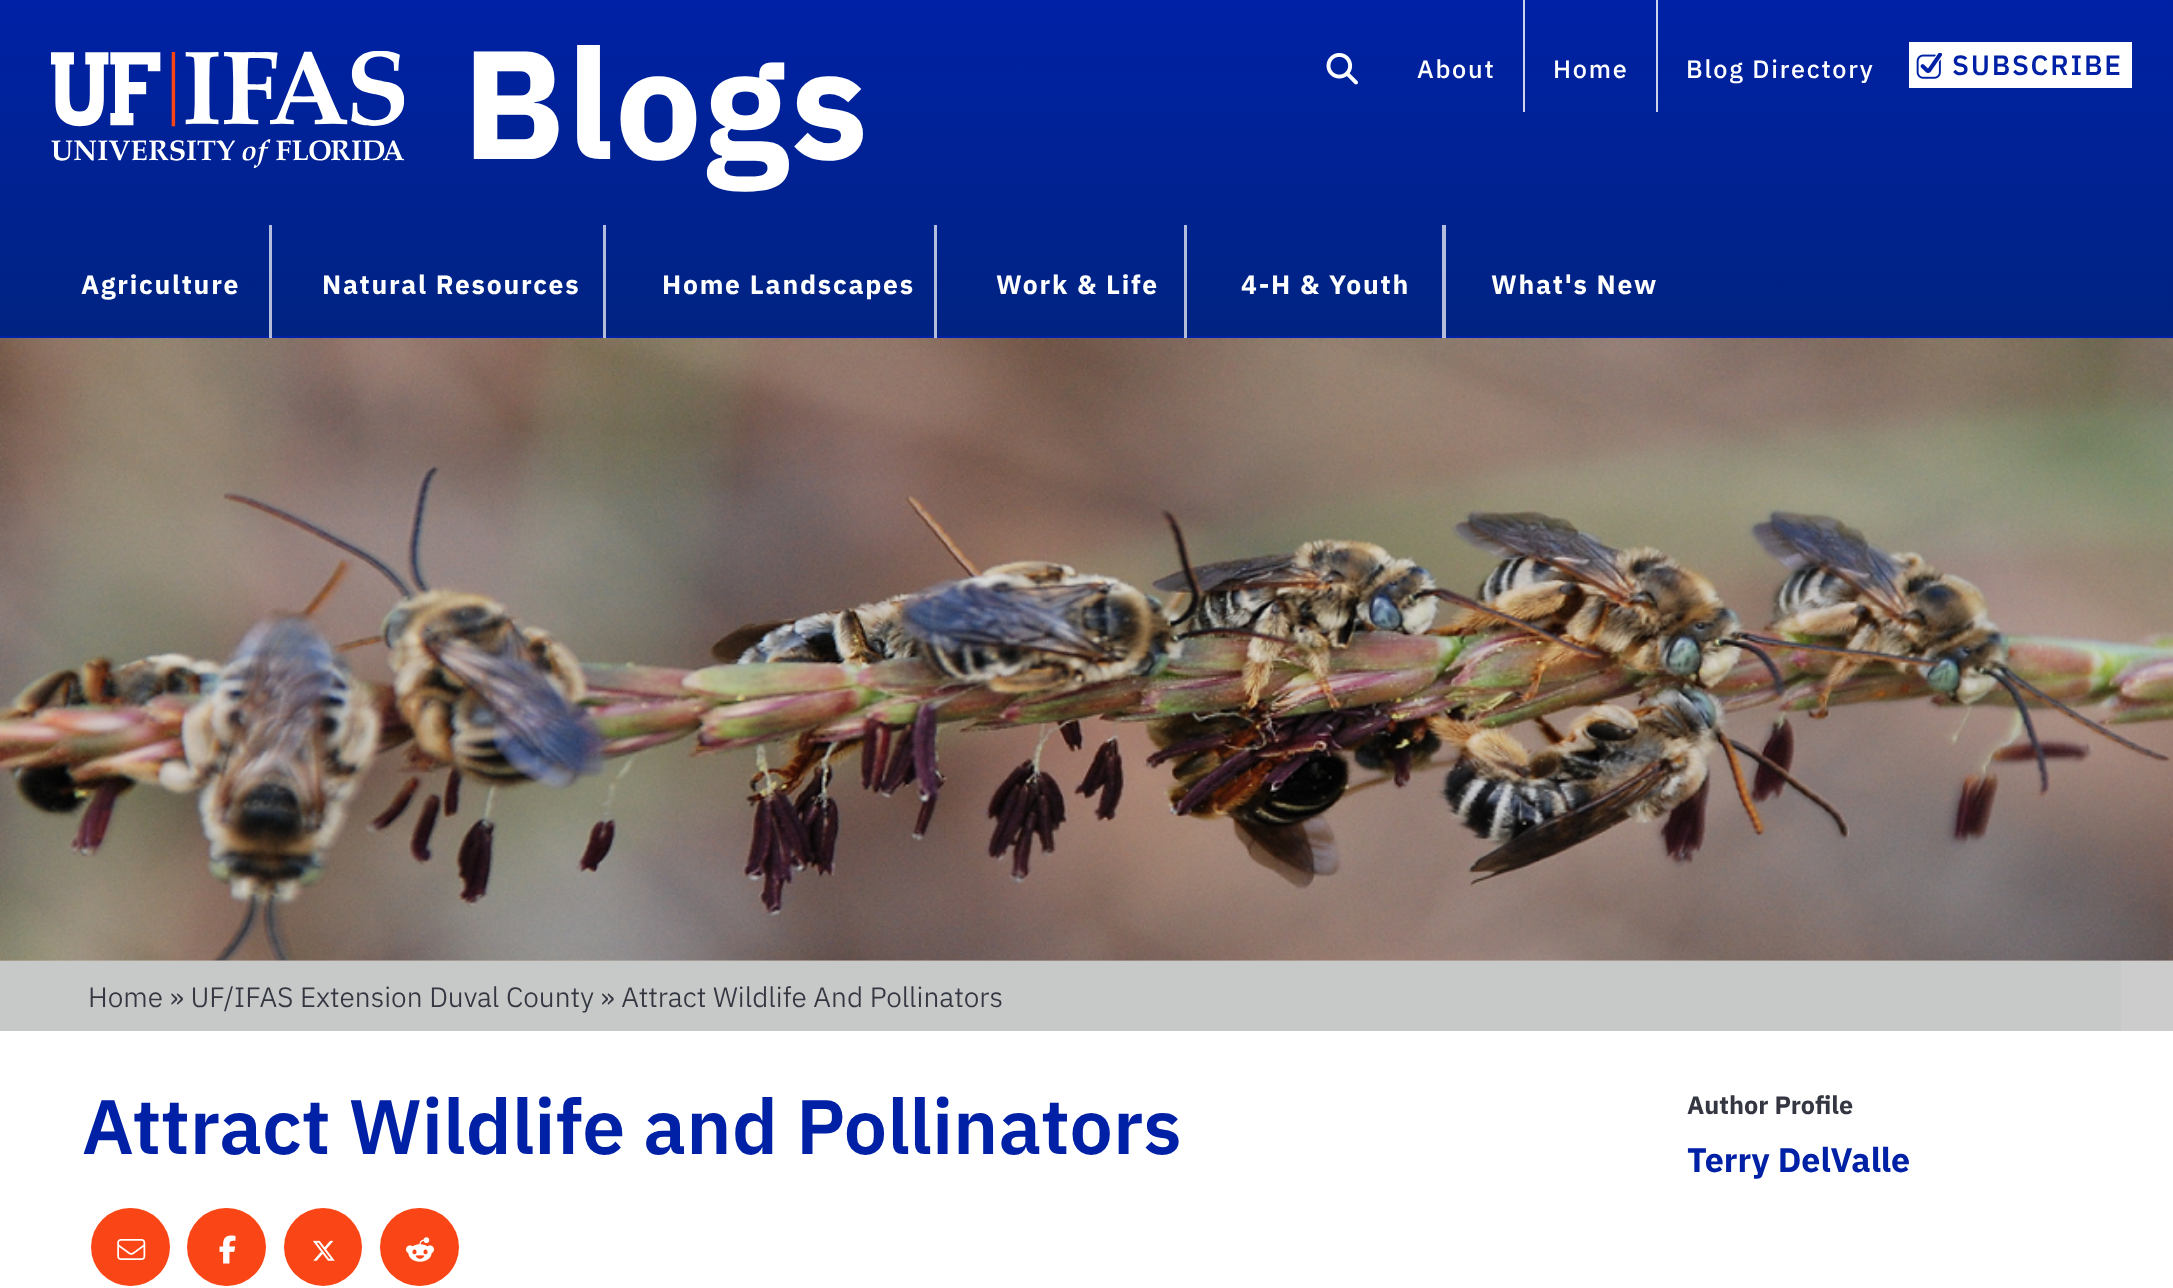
<svg xmlns="http://www.w3.org/2000/svg" width="2173" height="1288">
<defs>
<linearGradient id="g1" gradientUnits="userSpaceOnUse" x1="1087" y1="0" x2="1087" y2="336"><stop offset="0" stop-color="#0021a5"/><stop offset="1" stop-color="#002382"/></linearGradient>
<linearGradient id="g2" gradientUnits="userSpaceOnUse" x1="1087" y1="0" x2="1087" y2="336"><stop offset="0" stop-color="#ccd3ed"/><stop offset="1" stop-color="#ccd3e6"/></linearGradient>
</defs>
<rect width="100%" height="100%" fill="#fff"/>
<rect width="2173" height="336" fill="url(#g1)"/>
<rect x="1656" width="2" height="112" fill="url(#g2)"/>
<rect x="1523" width="2" height="112" fill="url(#g2)"/>
<image x="51" y="51" width="353" height="117" href="media/1.png"/>
<text x="462" y="159" style="font-family:IBM Plex Sans;font-size:154px;font-weight:bold;letter-spacing:1.75px;fill:#fff">Blogs</text>
<image x="1326" y="52" width="32" height="33" href="media/2.png"/>
<text x="1417" y="78" style="font-family:IBM Plex Sans;font-size:25.25px;font-weight:500;letter-spacing:1.75px;fill:#fff">About</text>
<text x="1553" y="78" style="font-family:IBM Plex Sans;font-size:25.25px;font-weight:500;letter-spacing:1.75px;fill:#fff">Home</text>
<text x="1686" y="78" style="font-family:IBM Plex Sans;font-size:25.25px;font-weight:500;letter-spacing:1.75px;fill:#fff">Blog Directory</text>
<rect x="1909" y="42" width="223" height="46" fill="#fff"/>
<image x="1916" y="53" width="27" height="26" href="media/3.png"/>
<text x="1952" y="75" style="font-family:'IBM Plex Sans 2';font-size:28px;font-weight:500;letter-spacing:1.75px;fill:#0021a5">SUBSCRIBE</text>
<text x="81" y="294" style="font-family:IBM Plex Sans;font-size:26.5px;font-weight:bold;letter-spacing:1.75px;fill:#fff">Agriculture</text>
<rect y="336" width="2173" height="2" fill="#0021a5"/>
<rect x="269" y="225" width="3" height="113" fill="#ffffffb3"/>
<text x="322" y="294" style="font-family:IBM Plex Sans;font-size:26.5px;font-weight:bold;letter-spacing:1.75px;fill:#fff">Natural Resources</text>
<rect x="603" y="225" width="3" height="113" fill="#ffffffb3"/>
<text x="662" y="294" style="font-family:IBM Plex Sans;font-size:26.5px;font-weight:bold;letter-spacing:1.75px;fill:#fff">Home Landscapes</text>
<rect x="934" y="225" width="3" height="113" fill="#ffffffb3"/>
<text x="996" y="294" style="font-family:IBM Plex Sans;font-size:26.5px;font-weight:bold;letter-spacing:1.75px;fill:#fff">Work &amp; Life</text>
<rect x="1184" y="225" width="3" height="113" fill="#ffffffb3"/>
<text x="1241" y="294" style="font-family:IBM Plex Sans;font-size:26.5px;font-weight:bold;letter-spacing:1.75px;fill:#fff">4-H &amp; Youth</text>
<rect x="1442" y="225" width="4" height="113" fill="#ffffffb3"/>
<text x="1491" y="294" style="font-family:IBM Plex Sans;font-size:26.5px;font-weight:bold;letter-spacing:1.75px;fill:#fff">What's New</text>
<image x="0" y="338" width="2173" height="623" href="media/4.png"/>
<rect x="2121" y="961" width="52" height="70" fill="#ccc"/>
<rect y="961" width="2121" height="70" fill="#c7c9c8"/>
<text x="88" y="1007" style="font-family:IBM Plex Sans;font-size:28px;font-weight:300;fill:#343741">Home » UF/IFAS Extension Duval County » Attract Wildlife And Pollinators</text>
<text x="82" y="1154" style="font-family:IBM Plex Sans;font-size:77px;font-weight:600;fill:#0021a5">Attract Wildlife and Pollinators</text>
<rect x="91" y="1208" width="79" height="78" rx="39" fill="#fa4616"/>
<image x="117" y="1239" width="29" height="21" href="media/5.png"/>
<rect x="187" y="1208" width="79" height="78" rx="39" fill="#fa4616"/>
<image x="219" y="1235" width="17" height="29" href="media/6.png"/>
<circle cx="323" cy="1247" r="39" fill="#fa4616"/>
<image x="313" y="1240" width="22" height="21" href="media/7.png"/>
<rect x="380" y="1208" width="79" height="78" rx="39" fill="#fa4616"/>
<image x="406" y="1237" width="28" height="25" href="media/8.png"/>
<text x="1687" y="1114" style="font-family:IBM Plex Sans;font-size:25.25px;font-weight:bold;fill:#343741">Author Profile</text>
<text x="1687" y="1172" style="font-family:IBM Plex Sans;font-size:34px;font-weight:bold;fill:#0021a5">Terry DelValle</text>
</svg>
